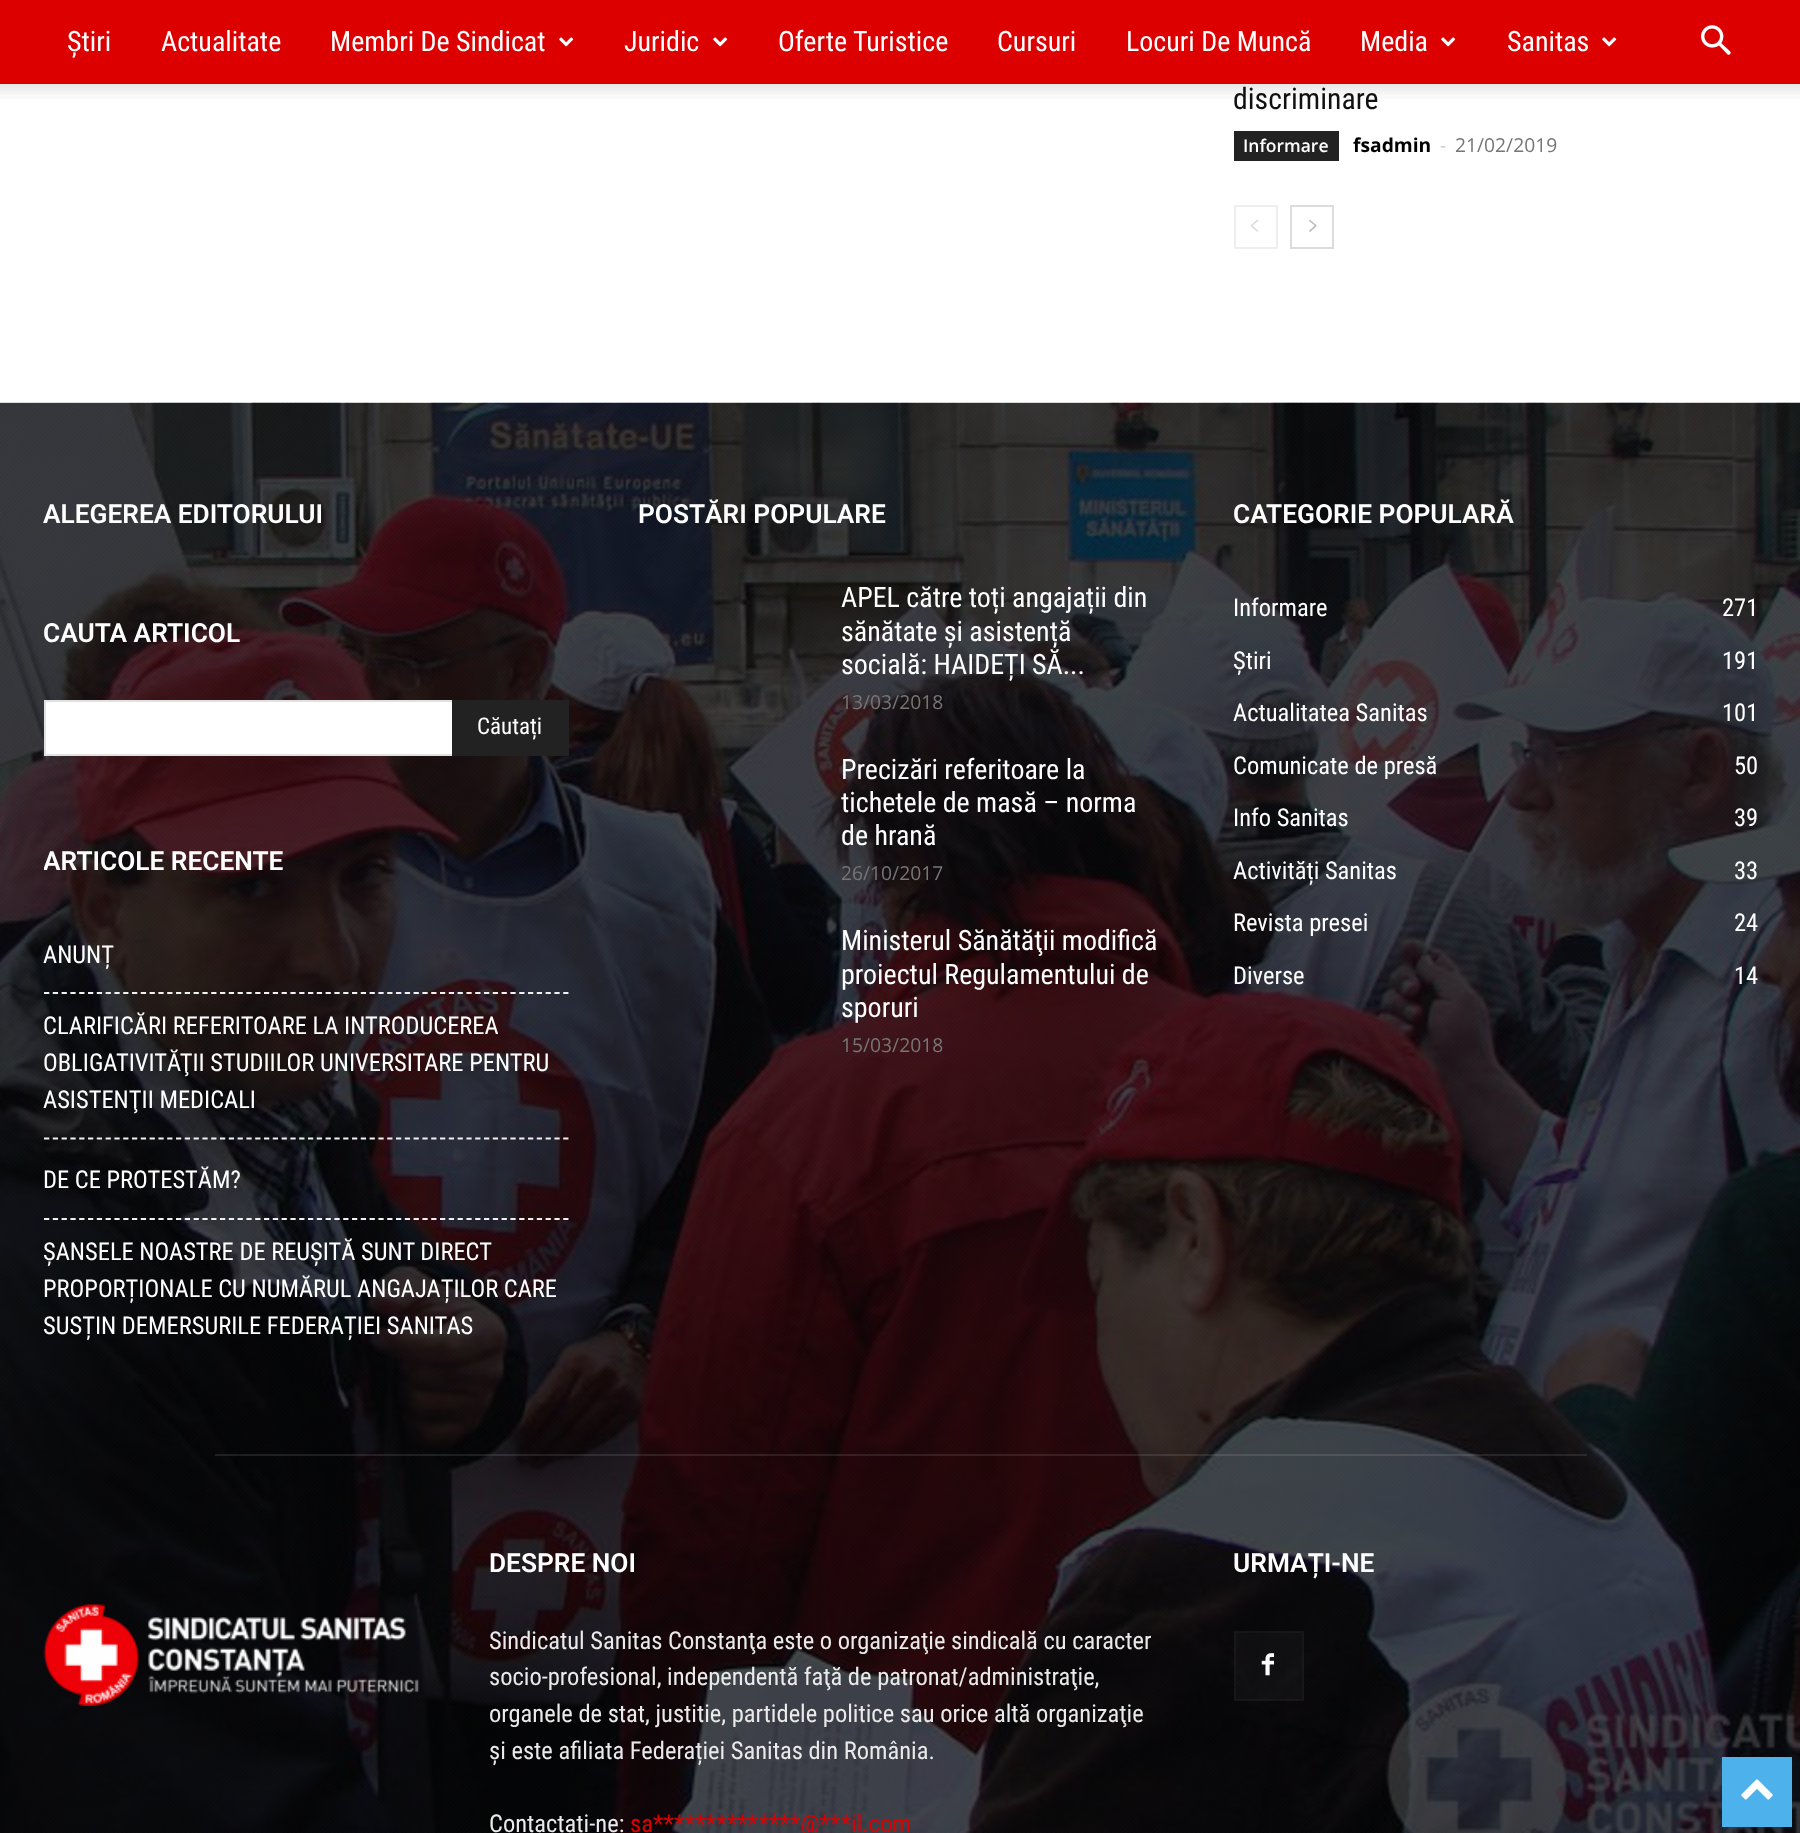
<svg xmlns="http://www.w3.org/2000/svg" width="1800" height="1833">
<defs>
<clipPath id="clip1"><rect x="44" y="840" width="525" height="537"/></clipPath>
</defs>
<rect width="100%" height="100%" fill="#fff"/>
<rect width="1800" height="84" fill="#d00"/>
<text x="67" y="51" style="font-family:Roboto Condensed;font-size:28px;fill:#fff">Știri</text>
<text x="161" y="51" style="font-family:Roboto Condensed;font-size:28px;fill:#fff">Actualitate</text>
<text x="330" y="51" style="font-family:Roboto Condensed;font-size:28px;fill:#fff">Membri De Sindicat</text>
<image x="559" y="37" width="15" height="10" href="media/1.png"/>
<text x="624" y="51" style="font-family:Roboto Condensed;font-size:28px;fill:#fff">Juridic</text>
<image x="713" y="37" width="15" height="10" href="media/1.png"/>
<text x="778" y="51" style="font-family:Roboto Condensed;font-size:28px;fill:#fff">Oferte Turistice</text>
<text x="997" y="51" style="font-family:Roboto Condensed;font-size:28px;fill:#fff">Cursuri</text>
<text x="1126" y="51" style="font-family:Roboto Condensed;font-size:28px;fill:#fff">Locuri De Muncă</text>
<text x="1360" y="51" style="font-family:Roboto Condensed;font-size:28px;fill:#fff">Media</text>
<image x="1441" y="37" width="15" height="10" href="media/1.png"/>
<text x="1507" y="51" style="font-family:Roboto Condensed;font-size:28px;fill:#fff">Sanitas</text>
<image x="1602" y="37" width="15" height="10" href="media/1.png"/>
<image x="1701" y="25" width="30" height="30" href="media/2.png"/>
<text x="1233" y="109" style="font-family:Roboto Condensed;font-size:29.75px;fill:#111">discriminare</text>
<image x="0" y="84" width="1800" height="15" href="media/3.png"/>
<rect x="1234" y="131" width="105" height="30" fill="#222"/>
<text x="1243" y="152" style="font-family:Open Sans;font-size:17.5px;font-weight:600;fill:#fff">Informare</text>
<text x="1353" y="152" style="font-family:Open Sans;font-size:19.25px;font-weight:bold;fill:#000">fsadmin</text>
<text x="1440" y="152" style="font-family:Open Sans;font-size:19.25px;fill:#ccc">-</text>
<text x="1455" y="152" style="font-family:Open Sans;font-size:19.25px;fill:#767676">21/02/2019</text>
<rect x="1235" y="206" width="42" height="42" fill="none" stroke="#eee" stroke-width="2"/>
<image x="1250" y="219" width="9" height="13" href="media/4.png"/>
<rect x="1291" y="206" width="42" height="42" fill="none" stroke="#dcdcdc" stroke-width="2"/>
<image x="1309" y="219" width="8" height="13" href="media/5.png"/>
<rect y="403" width="1800" height="1430" fill="#000"/>
<image x="0" y="402" width="1800" height="1431" href="media/6.png"/>
<text x="43" y="523" style="font-family:Roboto;font-size:26.25px;font-weight:600;fill:#fff">ALEGEREA EDITORULUI</text>
<text x="43" y="642" style="font-family:Roboto;font-size:26.25px;font-weight:600;fill:#fff">CAUTA ARTICOL</text>
<rect x="46" y="702" width="406" height="52" fill="#fff"/>
<rect x="44" y="700" width="408" height="2" fill="#e1e1e1"/>
<rect x="44" y="754" width="408" height="2" fill="#e1e1e1"/>
<rect x="44" y="700" width="2" height="56" fill="#e1e1e1"/>
<rect x="452" y="700" width="117" height="56" fill="#222"/>
<text x="477" y="734" style="font-family:Roboto Condensed;font-size:23px;fill:#fff">Căutați</text>
<g clip-path="url(#clip1)">
<text x="43" y="870" style="font-family:Roboto;font-size:26.25px;font-weight:600;fill:#fff">ARTICOLE RECENTE</text>
</g>
<path d="M44 993h525" fill="none" stroke="#f1f1f1" stroke-width="1.8" stroke-dasharray="5.25 3.55"/>
<text x="43" y="963" style="font-family:Roboto Condensed;font-size:24.5px;fill:#fff">ANUNȚ</text>
<path d="M44 1138.5h525" fill="none" stroke="#f1f1f1" stroke-width="1.8" stroke-dasharray="5.25 3.55"/>
<text x="43" y="1034" style="font-family:Roboto Condensed;font-size:24.5px;fill:#fff">CLARIFICĂRI REFERITOARE LA INTRODUCEREA</text>
<text x="43" y="1071" style="font-family:Roboto Condensed;font-size:24.5px;fill:#fff">OBLIGATIVITĂŢII STUDIILOR UNIVERSITARE PENTRU</text>
<text x="43" y="1108" style="font-family:Roboto Condensed;font-size:24.5px;fill:#fff">ASISTENŢII MEDICALI</text>
<path d="M44 1219h525" fill="none" stroke="#f1f1f1" stroke-width="1.8" stroke-dasharray="5.25 3.55"/>
<text x="43" y="1188" style="font-family:Roboto Condensed;font-size:24.5px;fill:#fff">DE CE PROTESTĂM?</text>
<text x="43" y="1260" style="font-family:Roboto Condensed;font-size:24.5px;fill:#fff">ȘANSELE NOASTRE DE REUȘITĂ SUNT DIRECT</text>
<text x="43" y="1297" style="font-family:Roboto Condensed;font-size:24.5px;fill:#fff">PROPORȚIONALE CU NUMĂRUL ANGAJAȚILOR CARE</text>
<text x="43" y="1334" style="font-family:Roboto Condensed;font-size:24.5px;fill:#fff">SUSȚIN DEMERSURILE FEDERAȚIEI SANITAS</text>
<text x="638" y="523" style="font-family:Roboto;font-size:26.25px;font-weight:600;fill:#fff">POSTĂRI POPULARE</text>
<text x="841" y="607" style="font-family:Roboto Condensed;font-size:28px;fill:#fff">APEL către toți angajații din</text>
<text x="841" y="641" style="font-family:Roboto Condensed;font-size:28px;fill:#fff">sănătate și asistență</text>
<text x="841" y="674" style="font-family:Roboto Condensed;font-size:28px;fill:#fff">socială: HAIDEȚI SĂ...</text>
<text x="841" y="709" style="font-family:Open Sans;font-size:19.25px;fill:#767676">13/03/2018</text>
<text x="841" y="779" style="font-family:Roboto Condensed;font-size:28px;fill:#fff">Precizări referitoare la</text>
<text x="841" y="812" style="font-family:Roboto Condensed;font-size:28px;fill:#fff">tichetele de masă – norma</text>
<text x="841" y="845" style="font-family:Roboto Condensed;font-size:28px;fill:#fff">de hrană</text>
<text x="841" y="880" style="font-family:Open Sans;font-size:19.25px;fill:#767676">26/10/2017</text>
<text x="841" y="950" style="font-family:Roboto Condensed;font-size:28px;fill:#fff">Ministerul Sănătăţii modifică</text>
<text x="841" y="984" style="font-family:Roboto Condensed;font-size:28px;fill:#fff">proiectul Regulamentului de</text>
<text x="841" y="1017" style="font-family:Roboto Condensed;font-size:28px;fill:#fff">sporuri</text>
<text x="841" y="1052" style="font-family:Open Sans;font-size:19.25px;fill:#767676">15/03/2018</text>
<text x="1233" y="523" style="font-family:Roboto;font-size:26.25px;font-weight:600;fill:#fff">CATEGORIE POPULARĂ</text>
<text x="1233" y="616" style="font-family:Roboto Condensed;font-size:24.5px;fill:#fff">Informare</text>
<text x="1722" y="616" style="font-family:Roboto Condensed;font-size:24.5px;fill:#fff">271</text>
<text x="1233" y="669" style="font-family:Roboto Condensed;font-size:24.5px;fill:#fff">Știri</text>
<text x="1722" y="669" style="font-family:Roboto Condensed;font-size:24.5px;fill:#fff">191</text>
<text x="1233" y="721" style="font-family:Roboto Condensed;font-size:24.5px;fill:#fff">Actualitatea Sanitas</text>
<text x="1722" y="721" style="font-family:Roboto Condensed;font-size:24.5px;fill:#fff">101</text>
<text x="1233" y="774" style="font-family:Roboto Condensed;font-size:24.5px;fill:#fff">Comunicate de presă</text>
<text x="1734" y="774" style="font-family:Roboto Condensed;font-size:24.5px;fill:#fff">50</text>
<text x="1233" y="826" style="font-family:Roboto Condensed;font-size:24.5px;fill:#fff">Info Sanitas</text>
<text x="1734" y="826" style="font-family:Roboto Condensed;font-size:24.5px;fill:#fff">39</text>
<text x="1233" y="879" style="font-family:Roboto Condensed;font-size:24.5px;fill:#fff">Activități Sanitas</text>
<text x="1734" y="879" style="font-family:Roboto Condensed;font-size:24.5px;fill:#fff">33</text>
<text x="1233" y="931" style="font-family:Roboto Condensed;font-size:24.5px;fill:#fff">Revista presei</text>
<text x="1734" y="931" style="font-family:Roboto Condensed;font-size:24.5px;fill:#fff">24</text>
<text x="1233" y="984" style="font-family:Roboto Condensed;font-size:24.5px;fill:#fff">Diverse</text>
<text x="1734" y="984" style="font-family:Roboto Condensed;font-size:24.5px;fill:#fff">14</text>
<rect x="215" y="1454" width="1372" height="2" fill="#ffffff1a"/>
<text x="489" y="1572" style="font-family:Roboto;font-size:26.25px;font-weight:600;fill:#fff">DESPRE NOI</text>
<text x="489" y="1649" style="font-family:Roboto Condensed;font-size:24.5px;fill:#eaeaea">Sindicatul Sanitas Constanţa este o organizaţie sindicală cu caracter</text>
<text x="489" y="1685" style="font-family:Roboto Condensed;font-size:24.5px;fill:#eaeaea">socio-profesional, independentă faţă de patronat/administraţie,</text>
<text x="489" y="1722" style="font-family:Roboto Condensed;font-size:24.5px;fill:#eaeaea">organele de stat, justitie, partidele politice sau orice altă organizaţie</text>
<text x="489" y="1759" style="font-family:Roboto Condensed;font-size:24.5px;fill:#eaeaea">și este afiliata Federației Sanitas din România.</text>
<text x="489" y="1832" style="font-family:Roboto Condensed;font-size:24.5px;fill:#eaeaea">Contactați-ne:</text>
<text x="630" y="1832" style="font-family:Roboto Condensed;font-size:24.5px;fill:#d00">sa**************@***il.com</text>
<text x="1233" y="1572" style="font-family:Roboto;font-size:26.25px;font-weight:600;fill:#fff">URMAȚI-NE</text>
<rect x="1234" y="1631" width="70" height="70" fill="#ffffff08"/>
<image x="1261" y="1653" width="13" height="23" href="media/7.png"/>
<rect x="1235" y="1632" width="68" height="68" fill="none" stroke="#ffffff08" stroke-width="2"/>
<image x="43" y="1603" width="376" height="103" href="media/8.png"/>
<rect x="1722" y="1757" width="70" height="70" fill="#4db2ec"/>
<image x="1741" y="1779" width="32" height="21" href="media/9.png"/>
</svg>
